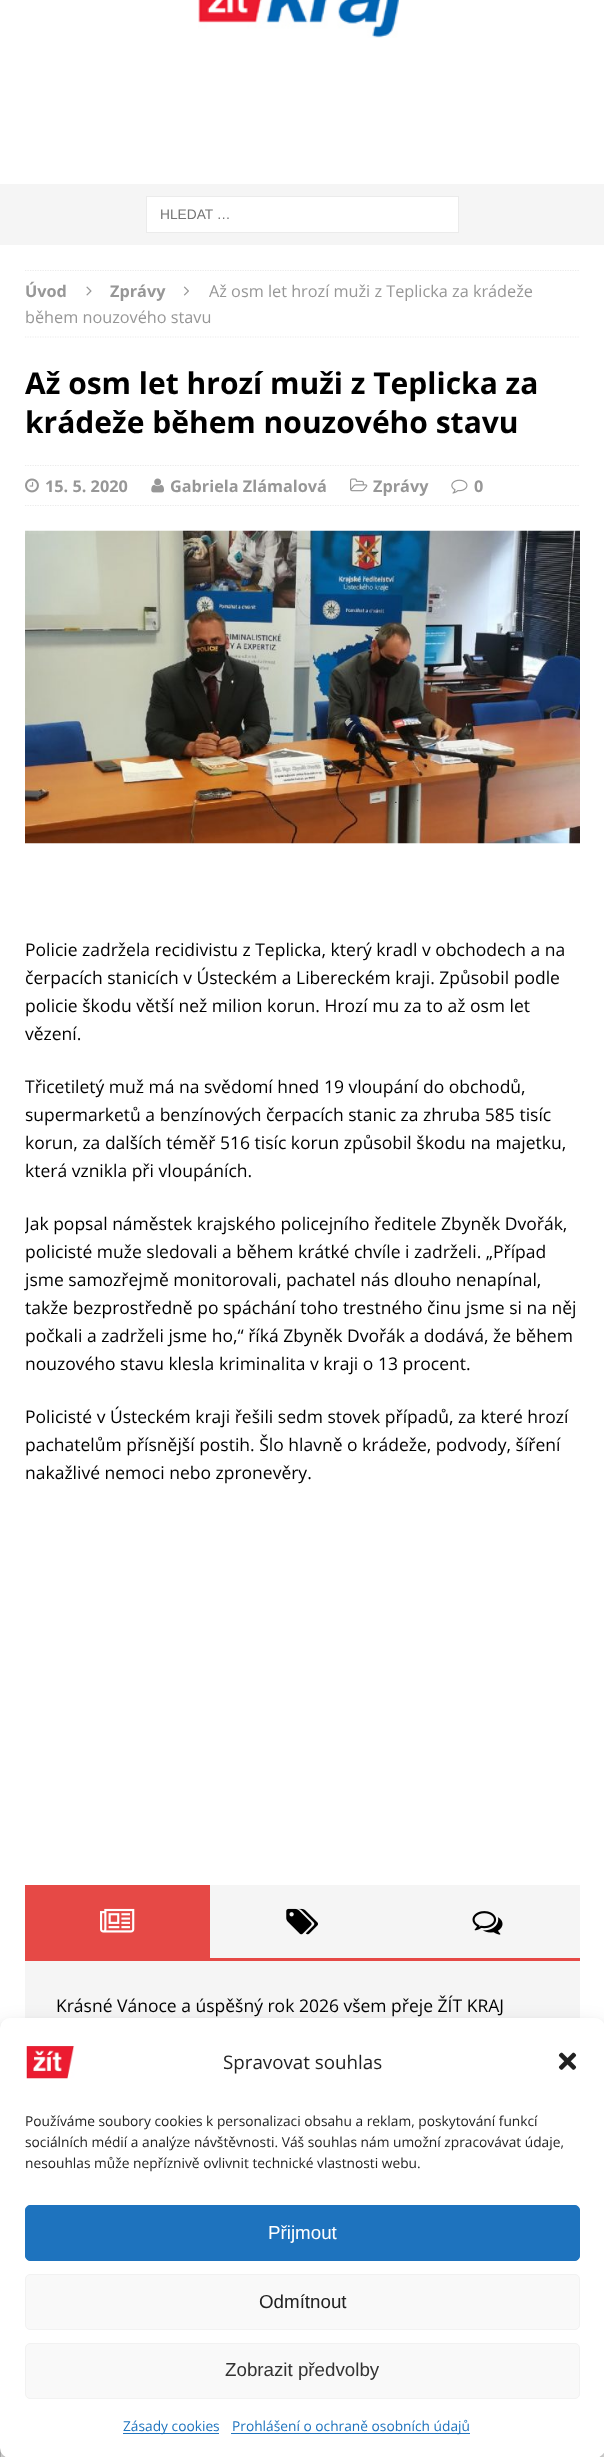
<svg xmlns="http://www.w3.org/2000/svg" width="604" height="2457">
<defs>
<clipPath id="clip1"><rect x="25" y="270" width="555" height="1590"/></clipPath>
</defs>
<rect width="100%" height="100%" fill="#fff"/>
<image x="198" y="0" width="202" height="38" href="media/1.png"/>
<rect y="184" width="604" height="61" fill="#f5f5f5"/>
<rect x="146.5" y="196.5" width="312" height="36" fill="#fff" stroke="#ebebeb"/>
<text x="160" y="219" style="font-family:Liberation Sans;font-size:13.75px;fill:#757575">HLEDAT …</text>
<g clip-path="url(#clip1)">
<path d="M25 270.5h555" fill="none" stroke="#ebebeb" stroke-width="1.2" stroke-dasharray="1.25 1.25"/>
</g>
<path d="M25 337h555" fill="none" stroke="#ebebeb" stroke-width="1.2" stroke-dasharray="1.25 1.25"/>
<text x="25" y="297" style="font-family:Open Sans;font-size:16.25px;font-weight:bold;fill:#979797">Úvod</text>
<image x="86" y="286" width="6" height="10" href="media/2.png"/>
<text x="110" y="297" style="font-family:Open Sans;font-size:16.25px;font-weight:bold;fill:#979797">Zprávy</text>
<image x="183" y="286" width="6" height="10" href="media/3.png"/>
<text x="209" y="297" style="font-family:Open Sans;font-size:16.25px;fill:#979797">Až osm let hrozí muži z Teplicka za krádeže</text>
<text x="25" y="323" style="font-family:Open Sans;font-size:16.25px;fill:#979797">během nouzového stavu</text>
<text x="25" y="394" style="font-family:Open Sans;font-size:30px;font-weight:bold;fill:#000">Až osm let hrozí muži z Teplicka za</text>
<text x="25" y="433" style="font-family:Open Sans;font-size:30px;font-weight:bold;fill:#000">krádeže během nouzového stavu</text>
<path d="M25 465.5h555" fill="none" stroke="#ebebeb" stroke-width="1.2" stroke-dasharray="1.25 1.25"/>
<path d="M25 505.5h555" fill="none" stroke="#ebebeb" stroke-width="1.2" stroke-dasharray="1.25 1.25"/>
<image x="25" y="478" width="14" height="15" href="media/4.png"/>
<text x="45" y="492" style="font-family:Open Sans;font-size:16.25px;font-weight:bold;fill:#979797">15. 5. 2020</text>
<image x="151" y="478" width="13" height="15" href="media/5.png"/>
<text x="170" y="492" style="font-family:Open Sans;font-size:16.25px;font-weight:bold;fill:#979797">Gabriela Zlámalová</text>
<image x="350" y="478" width="18" height="14" href="media/6.png"/>
<text x="373" y="492" style="font-family:Open Sans;font-size:16.25px;font-weight:bold;fill:#979797">Zprávy</text>
<image x="451" y="479" width="17" height="15" href="media/7.png"/>
<text x="474" y="492" style="font-family:Open Sans;font-size:16.25px;font-weight:bold;fill:#979797">0</text>
<image x="25" y="530" width="555" height="314" href="media/8.png"/>
<text x="25" y="956" style="font-family:Open Sans;font-size:17.5px;fill:#000">Policie zadržela recidivistu z Teplicka, který kradl v obchodech a na</text>
<text x="25" y="984" style="font-family:Open Sans;font-size:17.5px;fill:#000">čerpacích stanicích v Ústeckém a Libereckém kraji. Způsobil podle</text>
<text x="25" y="1012" style="font-family:Open Sans;font-size:17.5px;fill:#000">policie škodu větší než milion korun. Hrozí mu za to až osm let</text>
<text x="25" y="1040" style="font-family:Open Sans;font-size:17.5px;fill:#000">vězení.</text>
<text x="25" y="1093" style="font-family:Open Sans;font-size:17.5px;fill:#000">Třicetiletý muž má na svědomí hned 19 vloupání do obchodů,</text>
<text x="25" y="1121" style="font-family:Open Sans;font-size:17.5px;fill:#000">supermarketů a benzínových čerpacích stanic za zhruba 585 tisíc</text>
<text x="25" y="1149" style="font-family:Open Sans;font-size:17.5px;fill:#000">korun, za dalších téměř 516 tisíc korun způsobil škodu na majetku,</text>
<text x="25" y="1177" style="font-family:Open Sans;font-size:17.5px;fill:#000">která vznikla při vloupáních.</text>
<g clip-path="url(#clip1)">
<text x="25" y="1230" style="font-family:Open Sans;font-size:17.5px;fill:#000">Jak popsal náměstek krajského policejního ředitele Zbyněk Dvořák,</text>
</g>
<text x="25" y="1258" style="font-family:Open Sans;font-size:17.5px;fill:#000">policisté muže sledovali a během krátké chvíle i zadrželi. „Případ</text>
<text x="25" y="1286" style="font-family:Open Sans;font-size:17.5px;fill:#000">jsme samozřejmě monitorovali, pachatel nás dlouho nenapínal,</text>
<text x="25" y="1314" style="font-family:Open Sans;font-size:17.5px;fill:#000">takže bezprostředně po spáchání toho trestného činu jsme si na něj</text>
<text x="25" y="1342" style="font-family:Open Sans;font-size:17.5px;fill:#000">počkali a zadrželi jsme ho,“ říká Zbyněk Dvořák a dodává, že během</text>
<text x="25" y="1370" style="font-family:Open Sans;font-size:17.5px;fill:#000">nouzového stavu klesla kriminalita v kraji o 13 procent.</text>
<text x="25" y="1423" style="font-family:Open Sans;font-size:17.5px;fill:#000">Policisté v Ústeckém kraji řešili sedm stovek případů, za které hrozí</text>
<text x="25" y="1451" style="font-family:Open Sans;font-size:17.5px;fill:#000">pachatelům přísnější postih. Šlo hlavně o krádeže, podvody, šíření</text>
<text x="25" y="1479" style="font-family:Open Sans;font-size:17.5px;fill:#000">nakažlivé nemoci nebo zpronevěry.</text>
<rect x="25" y="1958" width="555" height="3" fill="#e64946"/>
<rect x="25" y="1885" width="185" height="73" fill="#e64946"/>
<image x="100" y="1908" width="35" height="25" href="media/9.png"/>
<rect x="210" y="1885" width="370" height="73" fill="#f5f5f5"/>
<image x="286" y="1908" width="32" height="27" href="media/10.png"/>
<image x="472" y="1911" width="31" height="24" href="media/11.png"/>
<rect x="25" y="1961" width="555" height="57" fill="#f5f5f5"/>
<text x="56" y="2012" style="font-family:Open Sans;font-size:17.5px;fill:#000">Krásné Vánoce a úspěšný rok 2026 všem přeje ŽÍT KRAJ</text>
<rect x="0.5" y="2391.5" width="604" height="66" fill="none" stroke="#ccc"/>
<rect y="2025" width="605" height="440" rx="10" fill="#0000003b" filter="blur(4px)"/>
<rect y="2030" width="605" height="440" rx="10" fill="#00000030" filter="blur(12.5px)"/>
<rect y="2018" width="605" height="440" rx="10" fill="#fff"/>
<image x="26" y="2046" width="49" height="33" href="media/12.png"/>
<text x="223" y="2069" style="font-family:Open Sans;font-size:18.75px;fill:#222">Spravovat souhlas</text>
<image x="558" y="2052" width="19" height="18" href="media/13.png"/>
<text x="25" y="2126" style="font-family:Open Sans;font-size:13.75px;fill:#222">Používáme soubory cookies k personalizaci obsahu a reklam, poskytování funkcí</text>
<text x="25" y="2147" style="font-family:Open Sans;font-size:13.75px;fill:#222">sociálních médií a analýze návštěvnosti. Váš souhlas nám umožní zpracovávat údaje,</text>
<text x="25" y="2168" style="font-family:Open Sans;font-size:13.75px;fill:#222">nesouhlas může nepříznivě ovlivnit technické vlastnosti webu.</text>
<rect x="25.5" y="2205.5" width="554" height="55" rx="4.5" fill="#1e73be" stroke="#1e73be"/>
<text x="268" y="2239" style="font-family:Liberation Sans;font-size:18.75px;fill:#fff">Přijmout</text>
<rect x="25.5" y="2274.5" width="554" height="55" rx="4.5" fill="#f9f9f9" stroke="#f2f2f2"/>
<text x="259" y="2308" style="font-family:Liberation Sans;font-size:18.75px;fill:#222">Odmítnout</text>
<rect x="25.5" y="2343.5" width="554" height="55" rx="4.5" fill="#f9f9f9" stroke="#f2f2f2"/>
<text x="225" y="2376" style="font-family:Liberation Sans;font-size:18.75px;fill:#333">Zobrazit předvolby</text>
<rect x="123" y="2433" width="96" height="1" fill="#1e73be"/>
<text x="123" y="2431" style="font-family:Open Sans;font-size:13.75px;fill:#1e73be">Zásady cookies</text>
<rect x="231" y="2433" width="239" height="1" fill="#1e73be"/>
<text x="232" y="2431" style="font-family:Open Sans;font-size:13.75px;fill:#1e73be">Prohlášení o ochraně osobních údajů</text>
</svg>
